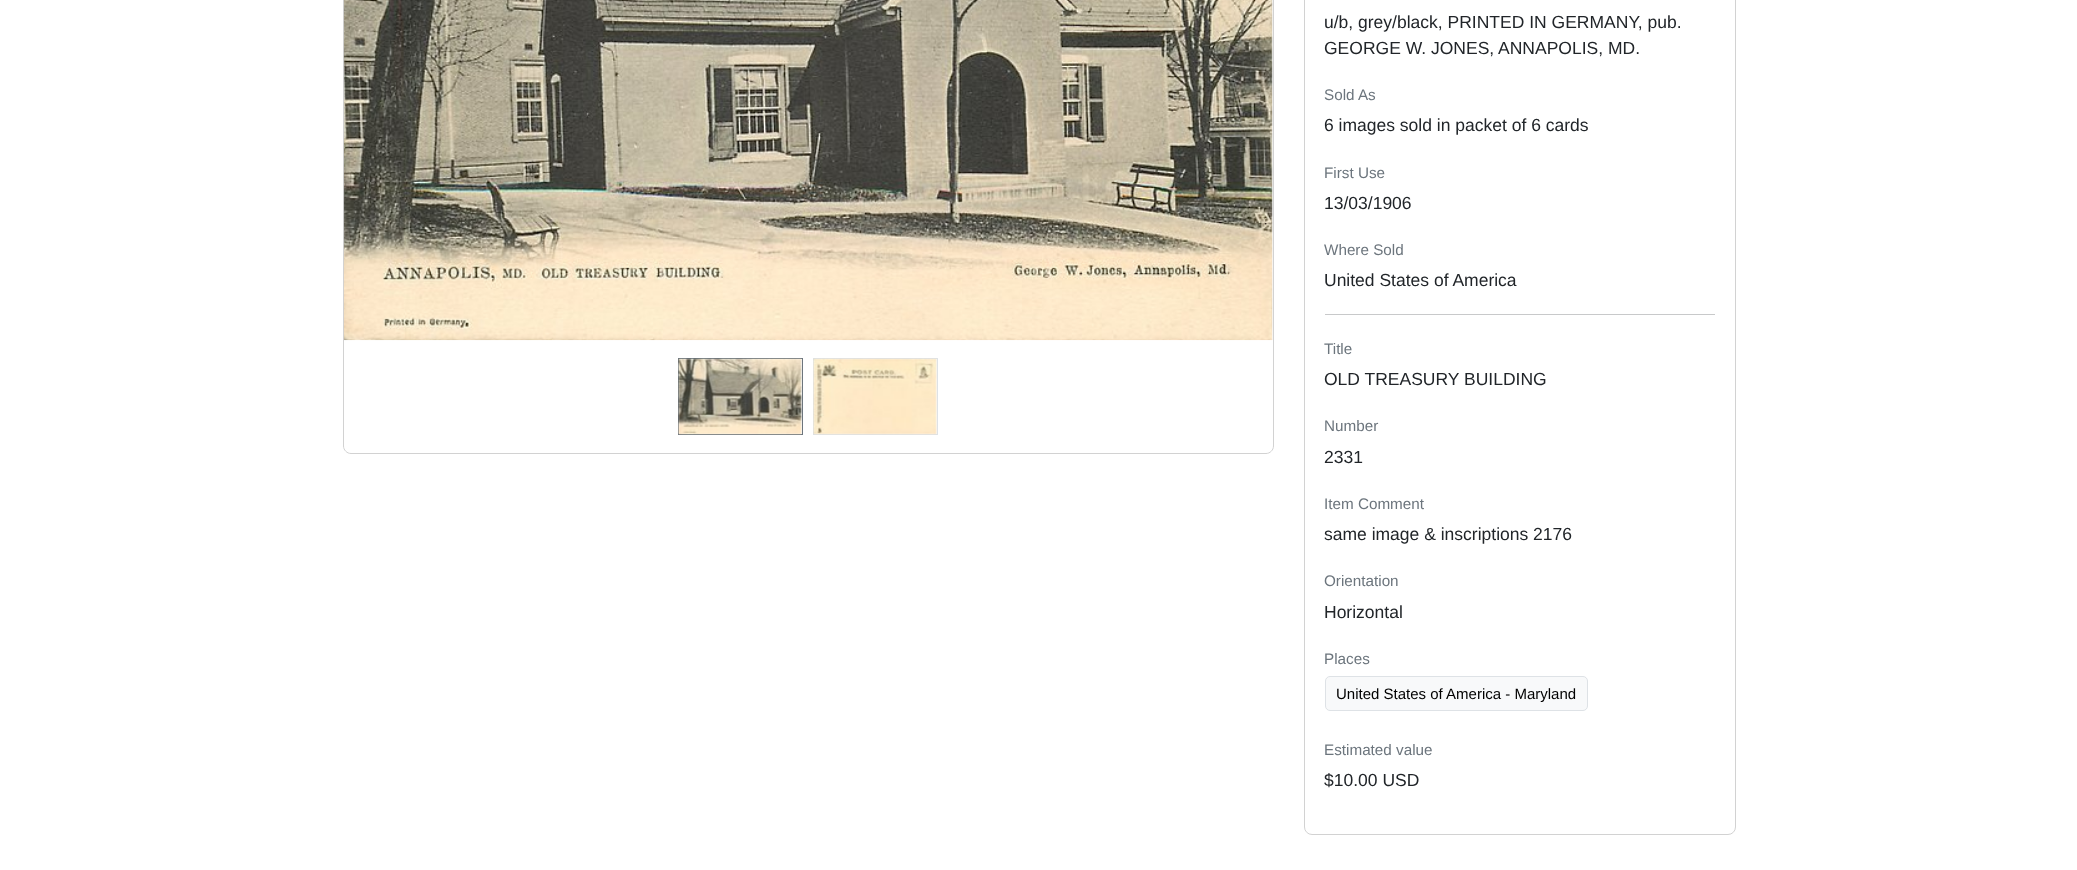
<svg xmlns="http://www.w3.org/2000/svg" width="2077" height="870">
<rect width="100%" height="100%" fill="#fff"/>
<path d="M343.5-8.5h930v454.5c0 4-3.5 7.5-7.5 7.5h-915c-4 0-7.5-3.5-7.5-7.5z" fill="none" stroke="#d2d2d2"/>
<rect x="1272" width="1" height="340" fill="#f8f9fa"/>
<image x="343" y="0" width="930" height="341" href="media/1.png"/>
<rect x="678.5" y="358.5" width="124" height="76" fill="#f8f9fa" stroke="#6c757d"/>
<image x="678" y="358" width="124" height="77" href="media/2.png"/>
<rect x="813.5" y="358.5" width="124" height="76" fill="#f8f9fa" stroke="#dee2e6"/>
<image x="813" y="358" width="124" height="77" href="media/3.png"/>
<rect x="1304.5" y="-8.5" width="431" height="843" rx="7.5" fill="none" stroke="#d2d2d2"/>
<text x="1324" y="28" style="font-family:Liberation Sans;font-size:17.5px;fill:#212529">u/b, grey/black, PRINTED IN GERMANY, pub.</text>
<text x="1324" y="54" style="font-family:Liberation Sans;font-size:17.5px;fill:#212529">GEORGE W. JONES, ANNAPOLIS, MD.</text>
<text x="1324" y="100" style="font-family:Liberation Sans;font-size:15.25px;fill:#6c757d">Sold As</text>
<text x="1324" y="131" style="font-family:Liberation Sans;font-size:17.5px;fill:#212529">6 images sold in packet of 6 cards</text>
<text x="1324" y="178" style="font-family:Liberation Sans;font-size:15.25px;fill:#6c757d">First Use</text>
<text x="1324" y="209" style="font-family:Liberation Sans;font-size:17.5px;fill:#212529">13/03/1906</text>
<text x="1324" y="255" style="font-family:Liberation Sans;font-size:15.25px;fill:#6c757d">Where Sold</text>
<text x="1324" y="286" style="font-family:Liberation Sans;font-size:17.5px;fill:#212529">United States of America</text>
<rect x="1325" y="314" width="390" height="1" fill="#c8c9ca"/>
<text x="1324" y="354" style="font-family:Liberation Sans;font-size:15.25px;fill:#6c757d">Title</text>
<text x="1324" y="385" style="font-family:Liberation Sans;font-size:17.5px;fill:#212529">OLD TREASURY BUILDING</text>
<text x="1324" y="431" style="font-family:Liberation Sans;font-size:15.25px;fill:#6c757d">Number</text>
<text x="1324" y="463" style="font-family:Liberation Sans;font-size:17.5px;fill:#212529">2331</text>
<text x="1324" y="509" style="font-family:Liberation Sans;font-size:15.25px;fill:#6c757d">Item Comment</text>
<text x="1324" y="540" style="font-family:Liberation Sans;font-size:17.5px;fill:#212529">same image &amp; inscriptions 2176</text>
<text x="1324" y="586" style="font-family:Liberation Sans;font-size:15.25px;fill:#6c757d">Orientation</text>
<text x="1324" y="618" style="font-family:Liberation Sans;font-size:17.5px;fill:#212529">Horizontal</text>
<text x="1324" y="664" style="font-family:Liberation Sans;font-size:15.25px;fill:#6c757d">Places</text>
<rect x="1325.5" y="676.5" width="262" height="34" rx="4.5" fill="#f8f9fa" stroke="#dee2e6"/>
<text x="1336" y="699" style="font-family:Liberation Sans;font-size:15px;fill:#000">United States of America - Maryland</text>
<text x="1324" y="755" style="font-family:Liberation Sans;font-size:15.25px;fill:#6c757d">Estimated value</text>
<text x="1324" y="786" style="font-family:Liberation Sans;font-size:17.5px;fill:#212529">$10.00 USD</text>
</svg>
